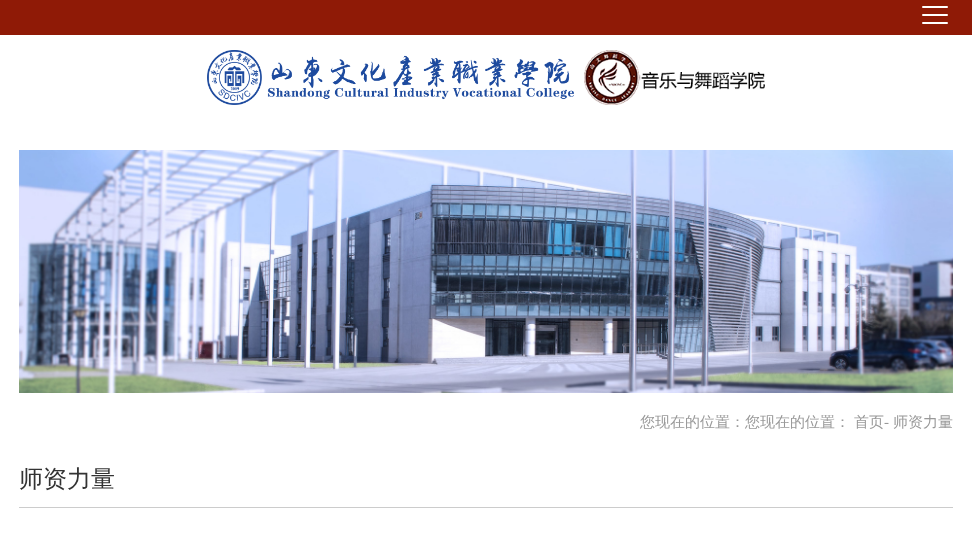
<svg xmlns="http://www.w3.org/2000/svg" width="972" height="552">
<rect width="100%" height="100%" fill="#fff"/>
<rect width="972" height="35" fill="#8f1a06"/>
<rect x="922" y="6" width="26" height="2" rx="1" fill="#fff"/>
<rect x="922" y="14" width="26" height="2" rx="1" fill="#fff"/>
<rect x="922" y="22" width="26" height="2" rx="1" fill="#fff"/>
<image x="207" y="50" width="367" height="55" href="media/1.png"/>
<image x="584" y="50" width="181" height="55" href="media/2.png"/>
<image x="19" y="150" width="934" height="243" href="media/3.png"/>
<text x="640" y="427" style="font-family:WenQuanYi Zen Hei;font-size:15px;font-weight:500;fill:#999">您现在的位置：您现在的位置：</text>
<text x="854" y="427" style="font-family:WenQuanYi Zen Hei;font-size:15px;font-weight:500;fill:#999">首页</text>
<text x="884" y="427" style="font-family:Liberation Serif;font-size:15px;fill:#999">-</text>
<text x="893" y="427" style="font-family:WenQuanYi Zen Hei;font-size:15px;font-weight:500;fill:#999">师资力量</text>
<rect x="19" y="507" width="934" height="1" fill="#ccc"/>
<text x="19" y="487" style="font-family:WenQuanYi Zen Hei;font-size:24px;font-weight:500;fill:#333">师资力量</text>
</svg>
